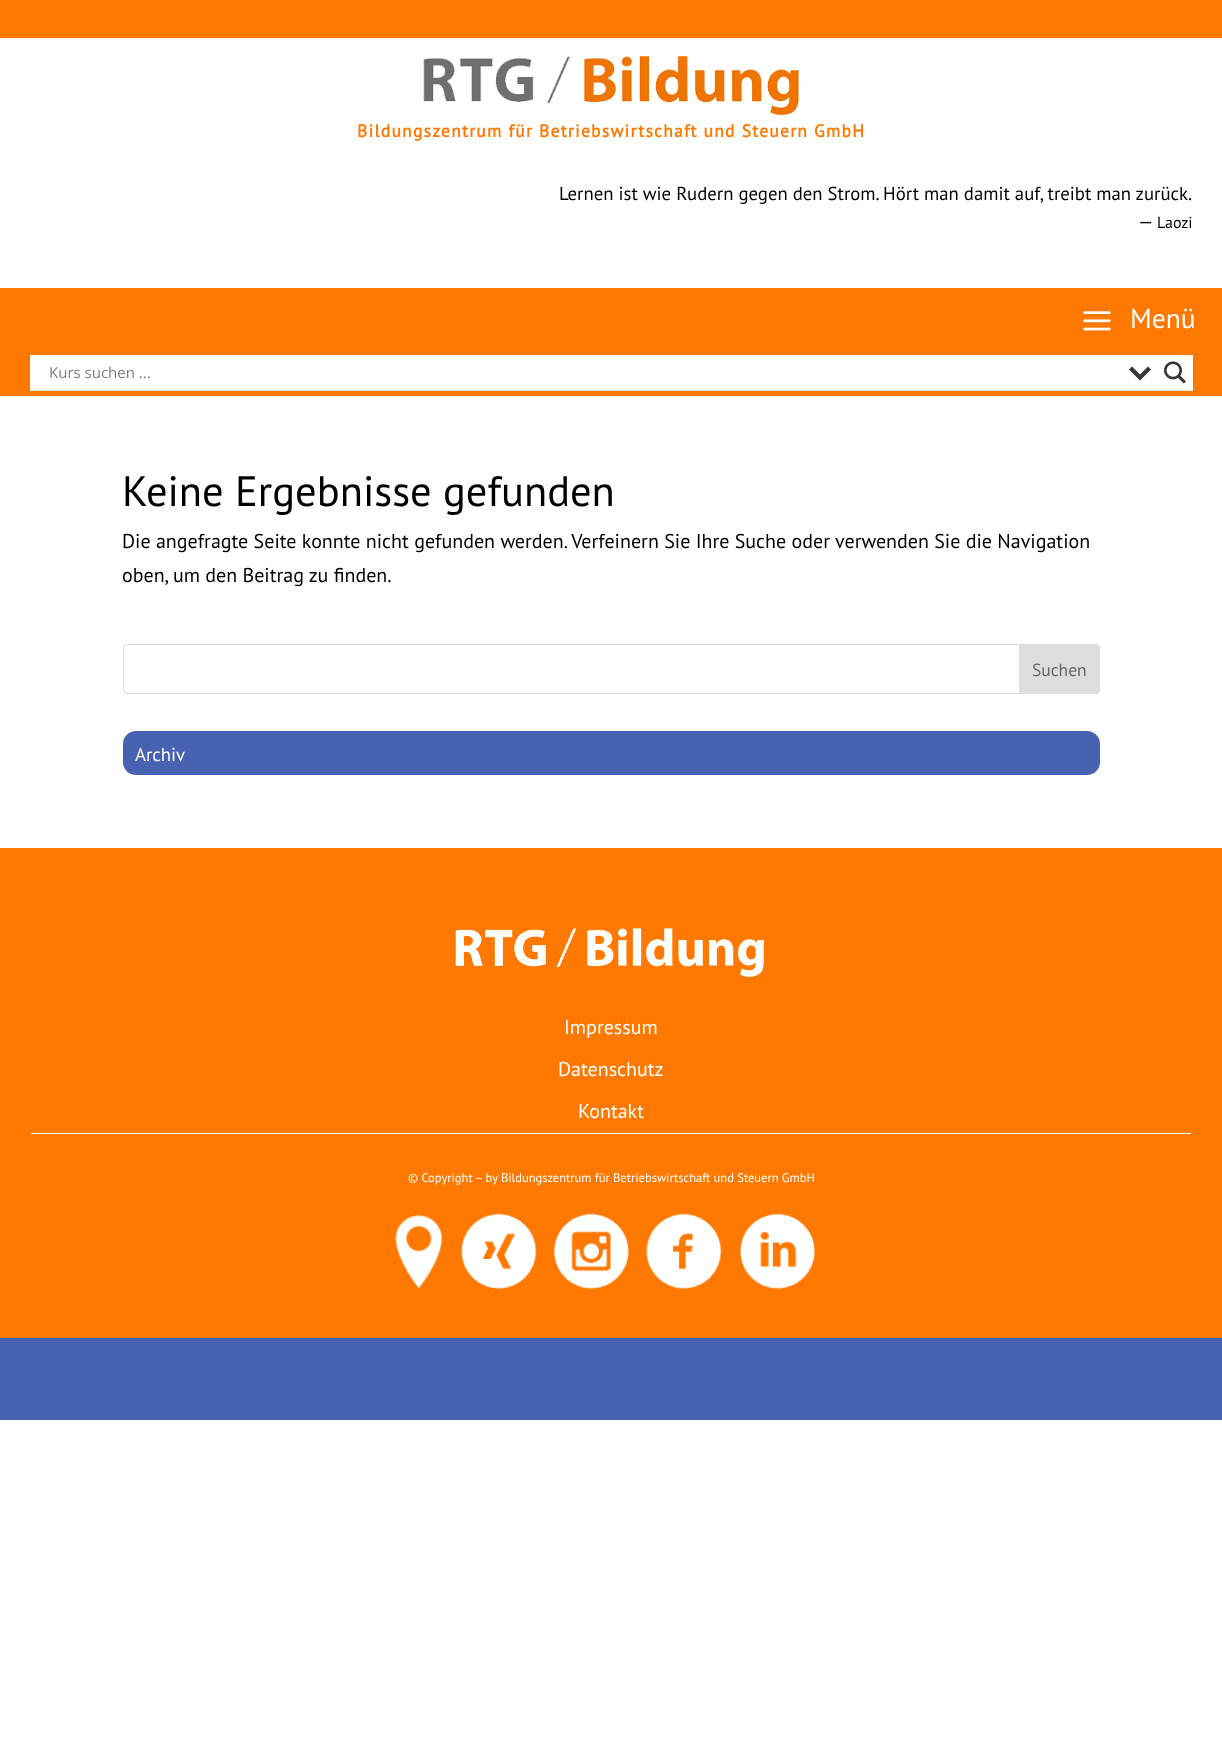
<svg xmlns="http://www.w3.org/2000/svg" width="1222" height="1744">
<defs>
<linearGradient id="g1" gradientUnits="userSpaceOnUse" x1="67" y1="752" x2="1156" y2="1515"><stop offset="0.05" stop-color="#ff7900"/><stop offset="0.09" stop-color="#4762b0"/></linearGradient>
</defs>
<rect width="100%" height="100%" fill="#fff"/>
<rect width="1222" height="38" fill="#ff7900"/>
<image x="423" y="56" width="376" height="59" href="media/1.png"/>
<text x="357" y="137" style="font-family:PT Sans;font-size:17.5px;font-weight:bold;letter-spacing:1.25px;fill:#ff7900">Bildungszentrum für Betriebswirtschaft und Steuern GmbH</text>
<text x="559" y="200" style="font-family:PT Sans;font-size:18.75px;fill:#000">Lernen ist wie Rudern gegen den Strom. Hört man damit auf, treibt man zurück.</text>
<text x="1138" y="228" style="font-family:PT Sans;font-size:18.75px;fill:#000">—</text>
<text x="1157" y="228" style="font-family:PT Sans;font-size:16px;fill:#000">Laozi</text>
<rect y="288" width="1222" height="108" fill="#ff7900"/>
<image x="1083" y="311" width="28" height="20" href="media/2.png"/>
<text x="1130" y="328" style="font-family:PT Sans;font-size:27.5px;fill:#fff">Menü</text>
<path d="M30 390v1h1163v-35h-1v34z" fill="#e4e4e4"/>
<rect x="30" y="355" width="1163" height="35" fill="#fff"/>
<text x="49" y="378" style="font-family:Open Sans;font-size:15px;fill:#7d7d7d">Kurs suchen ...</text>
<path d="M1148 366.5l3 3l-11 11l-11-11l3-3l8 8z" fill="#363636"/>
<image x="1164" y="361" width="22" height="23" href="media/3.png"/>
<text x="122" y="506" style="font-family:PT Sans;font-size:42.5px;fill:#000">Keine Ergebnisse gefunden</text>
<text x="122" y="548" style="font-family:PT Sans;font-size:20px;fill:#000">Die angefragte Seite konnte nicht gefunden werden. Verfeinern Sie Ihre Suche oder verwenden Sie die Navigation</text>
<text x="122" y="582" style="font-family:PT Sans;font-size:20px;fill:#000">oben, um den Beitrag zu finden.</text>
<rect x="123.5" y="644.5" width="976" height="49" rx="3.5" fill="none" stroke="#ddd"/>
<path d="M1019.5 644.5h76.5c2 0 3.5 1.5 3.5 3.5v42c0 2-1.5 3.5-3.5 3.5h-76.5z" fill="#ddd" stroke="#ddd"/>
<text x="1032" y="676" style="font-family:PT Sans;font-size:17.5px;fill:#666">Suchen</text>
<rect x="123" y="731" width="977" height="44" rx="13" fill="#4762b0"/>
<text x="135" y="761" style="font-family:PT Sans;font-size:18.75px;fill:#fff">Archiv</text>
<rect y="1338" width="1222" height="82" fill="url(#g1)"/>
<rect y="848" width="1222" height="490" fill="#ff7900"/>
<image x="455" y="928" width="309" height="49" href="media/4.png"/>
<text x="564" y="1034" style="font-family:PT Sans;font-size:20px;fill:#fff">Impressum</text>
<text x="558" y="1076" style="font-family:PT Sans;font-size:20px;fill:#fff">Datenschutz</text>
<text x="578" y="1118" style="font-family:PT Sans;font-size:20px;fill:#fff">Kontakt</text>
<rect x="31" y="1133" width="1160" height="1" fill="#fff"/>
<text x="408" y="1182" style="font-family:PT Sans;font-size:12.5px;fill:#fff">© Copyright – by Bildungszentrum für Betriebswirtschaft und Steuern GmbH</text>
<image x="395" y="1215" width="48" height="74" href="media/5.png"/>
<image x="461" y="1213" width="76" height="76" href="media/6.png"/>
<image x="553" y="1213" width="76" height="76" href="media/7.png"/>
<image x="646" y="1213" width="76" height="76" href="media/8.png"/>
<image x="740" y="1213" width="75" height="76" href="media/9.png"/>
</svg>
